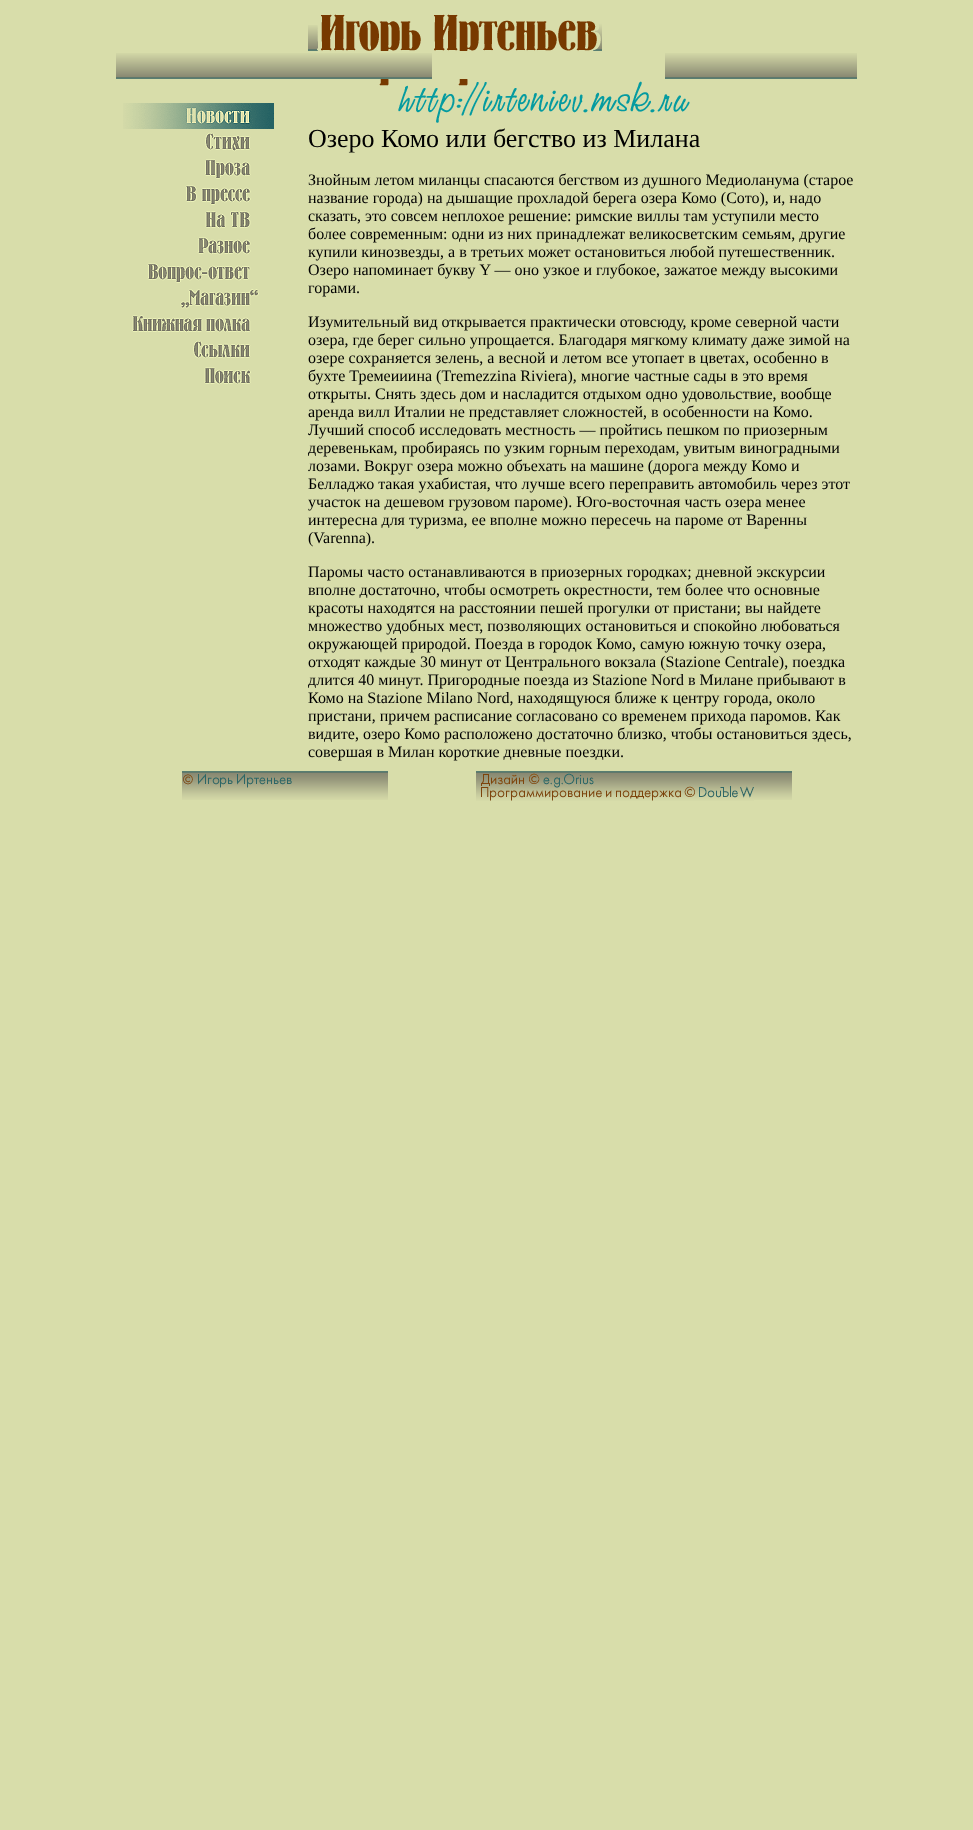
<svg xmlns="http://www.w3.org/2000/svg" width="973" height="1830">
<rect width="100%" height="100%" fill="#d8ddaa"/>
<image x="116" y="53" width="192" height="26" href="media/1.png"/>
<image x="308" y="25" width="10" height="26" href="media/2.png"/>
<image x="321" y="14" width="272" height="37" href="media/3.png"/>
<image x="593" y="22" width="9" height="29" href="media/4.png"/>
<image x="308" y="53" width="124" height="26" href="media/5.png"/>
<image x="665" y="53" width="192" height="26" href="media/1.png"/>
<image x="123" y="103" width="151" height="26" href="media/6.png"/>
<image x="205" y="132" width="46" height="20" href="media/7.png"/>
<image x="204" y="159" width="47" height="20" href="media/8.png"/>
<image x="185" y="185" width="66" height="20" href="media/9.png"/>
<image x="205" y="211" width="46" height="18" href="media/10.png"/>
<image x="197" y="237" width="54" height="18" href="media/11.png"/>
<image x="147" y="263" width="104" height="20" href="media/12.png"/>
<image x="180" y="289" width="79" height="20" href="media/13.png"/>
<image x="132" y="315" width="119" height="18" href="media/14.png"/>
<image x="193" y="340" width="58" height="19" href="media/15.png"/>
<image x="204" y="367" width="47" height="18" href="media/16.png"/>
<image x="379" y="79" width="263" height="7" href="media/17.png"/>
<image x="398" y="86" width="292" height="37" href="media/18.png"/>
<text x="308" y="147" style="font-family:Liberation Serif;font-size:26px;fill:#000">Озеро Комо или бегство из Милана</text>
<text x="308" y="185" style="font-family:Liberation Serif;font-size:16px;fill:#000">Знойным летом миланцы спасаются бегством из душного Медиоланума (старое</text>
<text x="308" y="203" style="font-family:Liberation Serif;font-size:16px;fill:#000">название города) на дышащие прохладой берега озера Комо (Сото), и, надо</text>
<text x="308" y="221" style="font-family:Liberation Serif;font-size:16px;fill:#000">сказать, это совсем неплохое решение: римские виллы там уступили место</text>
<text x="308" y="239" style="font-family:Liberation Serif;font-size:16px;fill:#000">более современным: одни из них принадлежат великосветским семьям, другие</text>
<text x="308" y="257" style="font-family:Liberation Serif;font-size:16px;fill:#000">купили кинозвезды, а в третьих может остановиться любой путешественник.</text>
<text x="308" y="275" style="font-family:Liberation Serif;font-size:16px;fill:#000">Озеро напоминает букву Y — оно узкое и глубокое, зажатое между высокими</text>
<text x="308" y="293" style="font-family:Liberation Serif;font-size:16px;fill:#000">горами.</text>
<text x="308" y="327" style="font-family:Liberation Serif;font-size:16px;fill:#000">Изумительный вид открывается практически отовсюду, кроме северной части</text>
<text x="308" y="345" style="font-family:Liberation Serif;font-size:16px;fill:#000">озера, где берег сильно упрощается. Благодаря мягкому климату даже зимой на</text>
<text x="308" y="363" style="font-family:Liberation Serif;font-size:16px;fill:#000">озере сохраняется зелень, а весной и летом все утопает в цветах, особенно в</text>
<text x="308" y="381" style="font-family:Liberation Serif;font-size:16px;fill:#000">бухте Тремеииина (Tremezzina Riviera), многие частные сады в это время</text>
<text x="308" y="399" style="font-family:Liberation Serif;font-size:16px;fill:#000">открыты. Снять здесь дом и насладится отдыхом одно удовольствие, вообще</text>
<text x="308" y="417" style="font-family:Liberation Serif;font-size:16px;fill:#000">аренда вилл Италии не представляет сложностей, в особенности на Комо.</text>
<text x="308" y="435" style="font-family:Liberation Serif;font-size:16px;fill:#000">Лучший способ исследовать местность — пройтись пешком по приозерным</text>
<text x="308" y="453" style="font-family:Liberation Serif;font-size:16px;fill:#000">деревенькам, пробираясь по узким горным переходам, увитым виноградными</text>
<text x="308" y="471" style="font-family:Liberation Serif;font-size:16px;fill:#000">лозами. Вокруг озера можно объехать на машине (дорога между Комо и</text>
<text x="308" y="489" style="font-family:Liberation Serif;font-size:16px;fill:#000">Белладжо такая ухабистая, что лучше всего переправить автомобиль через этот</text>
<text x="308" y="507" style="font-family:Liberation Serif;font-size:16px;fill:#000">участок на дешевом грузовом пароме). Юго-восточная часть озера менее</text>
<text x="308" y="525" style="font-family:Liberation Serif;font-size:16px;fill:#000">интересна для туризма, ее вполне можно пересечь на пароме от Варенны</text>
<text x="308" y="543" style="font-family:Liberation Serif;font-size:16px;fill:#000">(Varenna).</text>
<text x="308" y="577" style="font-family:Liberation Serif;font-size:16px;fill:#000">Паромы часто останавливаются в приозерных городках; дневной экскурсии</text>
<text x="308" y="595" style="font-family:Liberation Serif;font-size:16px;fill:#000">вполне достаточно, чтобы осмотреть окрестности, тем более что основные</text>
<text x="308" y="613" style="font-family:Liberation Serif;font-size:16px;fill:#000">красоты находятся на расстоянии пешей прогулки от пристани; вы найдете</text>
<text x="308" y="631" style="font-family:Liberation Serif;font-size:16px;fill:#000">множество удобных мест, позволяющих остановиться и спокойно любоваться</text>
<text x="308" y="649" style="font-family:Liberation Serif;font-size:16px;fill:#000">окружающей природой. Поезда в городок Комо, самую южную точку озера,</text>
<text x="308" y="667" style="font-family:Liberation Serif;font-size:16px;fill:#000">отходят каждые 30 минут от Центрального вокзала (Stazione Centrale), поездка</text>
<text x="308" y="685" style="font-family:Liberation Serif;font-size:16px;fill:#000">длится 40 минут. Пригородные поезда из Stazione Nord в Милане прибывают в</text>
<text x="308" y="703" style="font-family:Liberation Serif;font-size:16px;fill:#000">Комо на Stazione Milano Nord, находящуюся ближе к центру города, около</text>
<text x="308" y="721" style="font-family:Liberation Serif;font-size:16px;fill:#000">пристани, причем расписание согласовано со временем прихода паромов. Как</text>
<text x="308" y="739" style="font-family:Liberation Serif;font-size:16px;fill:#000">видите, озеро Комо расположено достаточно близко, чтобы остановиться здесь,</text>
<text x="308" y="757" style="font-family:Liberation Serif;font-size:16px;fill:#000">совершая в Милан короткие дневные поездки.</text>
<image x="182" y="771" width="110" height="29" href="media/19.png"/>
<image x="292" y="771" width="96" height="29" href="media/20.png"/>
<image x="476" y="771" width="278" height="16" href="media/21.png"/>
<image x="476" y="787" width="278" height="14" href="media/22.png"/>
<image x="754" y="771" width="38" height="29" href="media/23.png"/>
</svg>
